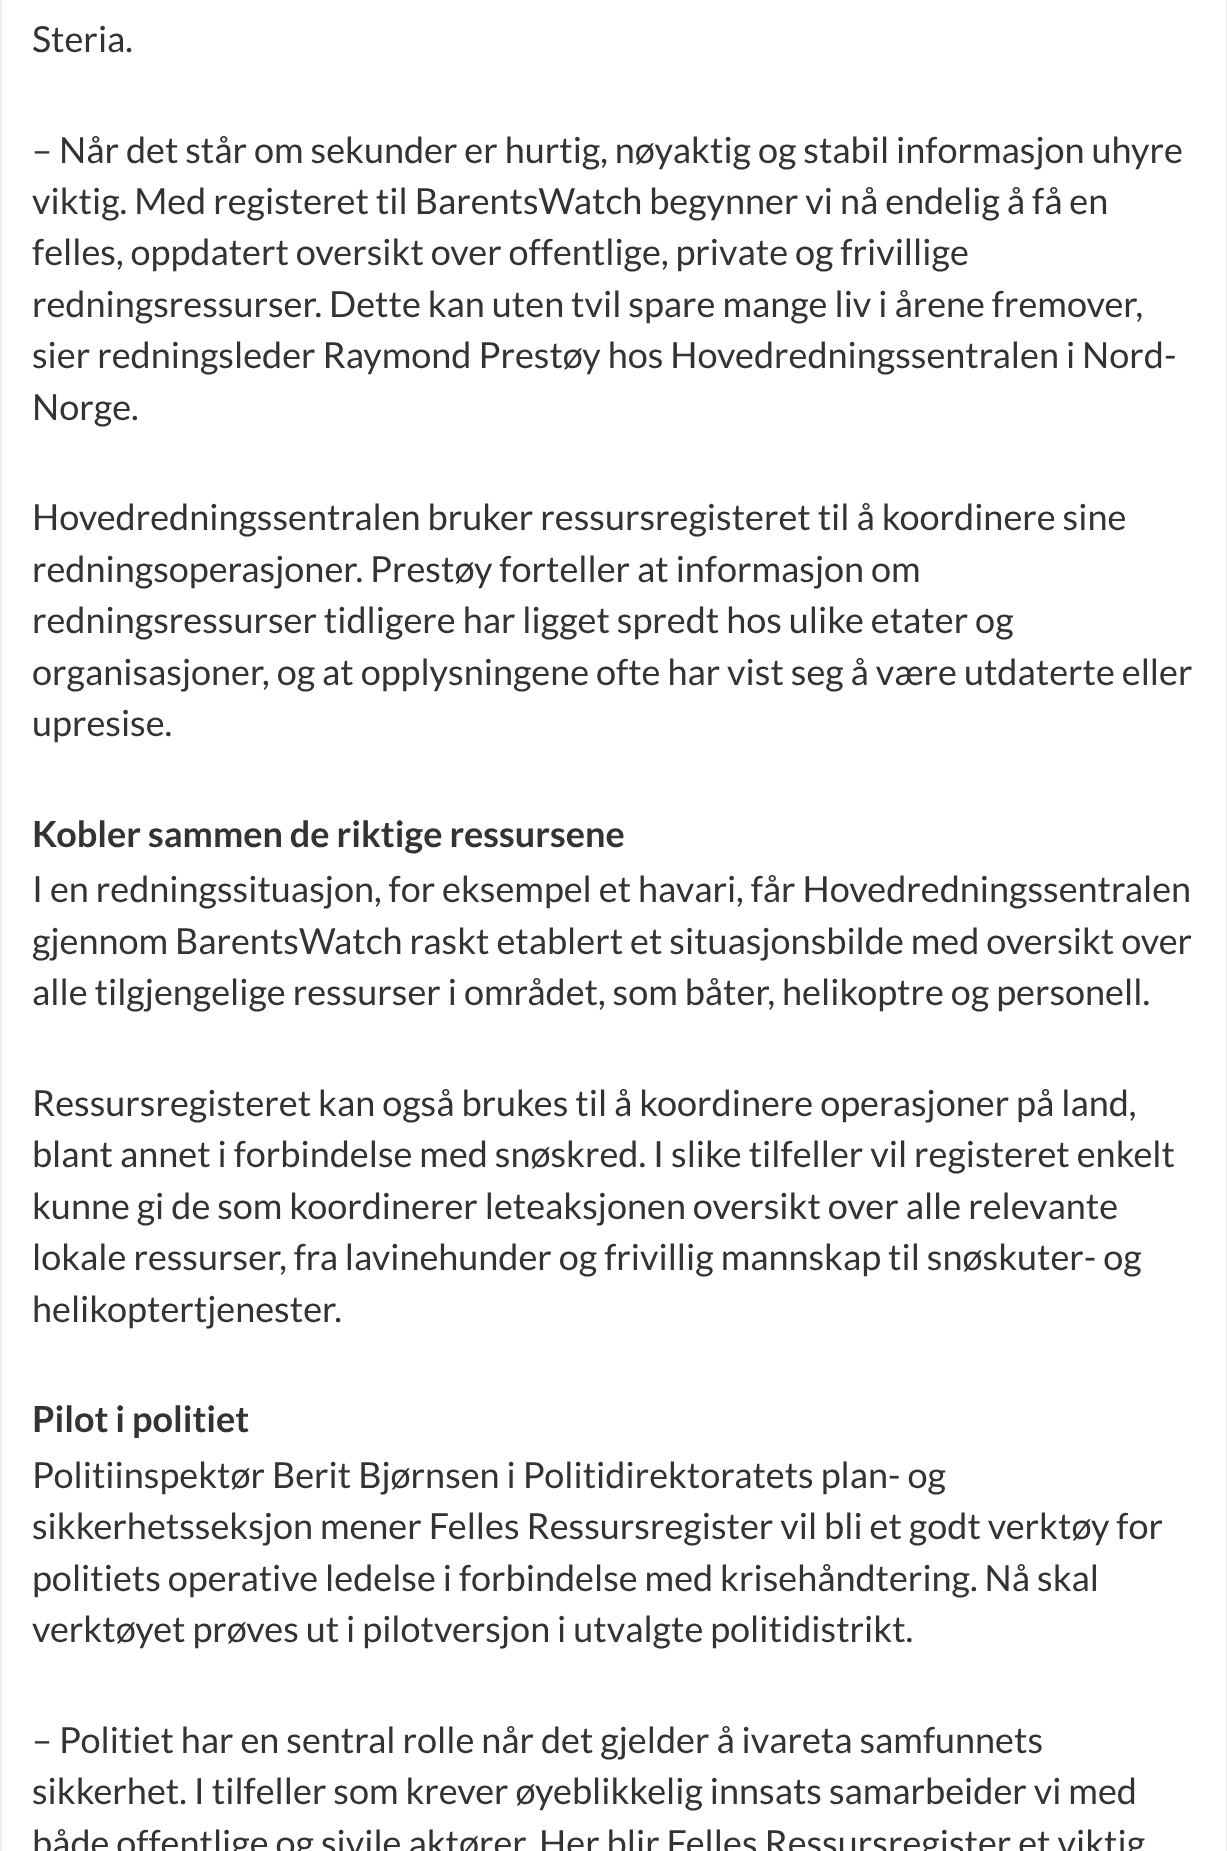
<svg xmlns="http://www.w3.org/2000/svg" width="1227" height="1851">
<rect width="100%" height="100%" fill="#fff"/>
<rect x="1226" width="1" height="1851" fill="#eee"/>
<rect width="2" height="1851" fill="#eee"/>
<text x="32" y="52" style="font-family:Lato;font-size:36px;fill:#333">Steria.</text>
<text x="32" y="163" style="font-family:Lato;font-size:36px;fill:#333">– Når det står om sekunder er hurtig, nøyaktig og stabil informasjon uhyre</text>
<text x="32" y="214" style="font-family:Lato;font-size:36px;fill:#333">viktig. Med registeret til BarentsWatch begynner vi nå endelig å få en</text>
<text x="32" y="265" style="font-family:Lato;font-size:36px;fill:#333">felles, oppdatert oversikt over offentlige, private og frivillige</text>
<text x="32" y="317" style="font-family:Lato;font-size:36px;fill:#333">redningsressurser. Dette kan uten tvil spare mange liv i årene fremover,</text>
<text x="32" y="368" style="font-family:Lato;font-size:36px;fill:#333">sier redningsleder Raymond Prestøy hos Hovedredningssentralen i Nord-</text>
<text x="32" y="420" style="font-family:Lato;font-size:36px;fill:#333">Norge.</text>
<text x="32" y="530" style="font-family:Lato;font-size:36px;fill:#333">Hovedredningssentralen bruker ressursregisteret til å koordinere sine</text>
<text x="32" y="582" style="font-family:Lato;font-size:36px;fill:#333">redningsoperasjoner. Prestøy forteller at informasjon om</text>
<text x="32" y="633" style="font-family:Lato;font-size:36px;fill:#333">redningsressurser tidligere har ligget spredt hos ulike etater og</text>
<text x="32" y="685" style="font-family:Lato;font-size:36px;fill:#333">organisasjoner, og at opplysningene ofte har vist seg å være utdaterte eller</text>
<text x="32" y="736" style="font-family:Lato;font-size:36px;fill:#333">upresise.</text>
<text x="32" y="847" style="font-family:Lato;font-size:36px;font-weight:bold;fill:#333">Kobler sammen de riktige ressursene</text>
<text x="32" y="902" style="font-family:Lato;font-size:36px;fill:#333">I en redningssituasjon, for eksempel et havari, får Hovedredningssentralen</text>
<text x="32" y="954" style="font-family:Lato;font-size:36px;fill:#333">gjennom BarentsWatch raskt etablert et situasjonsbilde med oversikt over</text>
<text x="32" y="1005" style="font-family:Lato;font-size:36px;fill:#333">alle tilgjengelige ressurser i området, som båter, helikoptre og personell.</text>
<text x="32" y="1116" style="font-family:Lato;font-size:36px;fill:#333">Ressursregisteret kan også brukes til å koordinere operasjoner på land,</text>
<text x="32" y="1167" style="font-family:Lato;font-size:36px;fill:#333">blant annet i forbindelse med snøskred. I slike tilfeller vil registeret enkelt</text>
<text x="32" y="1219" style="font-family:Lato;font-size:36px;fill:#333">kunne gi de som koordinerer leteaksjonen oversikt over alle relevante</text>
<text x="32" y="1270" style="font-family:Lato;font-size:36px;fill:#333">lokale ressurser, fra lavinehunder og frivillig mannskap til snøskuter- og</text>
<text x="32" y="1322" style="font-family:Lato;font-size:36px;fill:#333">helikoptertjenester.</text>
<text x="32" y="1432" style="font-family:Lato;font-size:36px;font-weight:bold;fill:#333">Pilot i politiet</text>
<text x="32" y="1488" style="font-family:Lato;font-size:36px;fill:#333">Politiinspektør Berit Bjørnsen i Politidirektoratets plan- og</text>
<text x="32" y="1539" style="font-family:Lato;font-size:36px;fill:#333">sikkerhetsseksjon mener Felles Ressursregister vil bli et godt verktøy for</text>
<text x="32" y="1591" style="font-family:Lato;font-size:36px;fill:#333">politiets operative ledelse i forbindelse med krisehåndtering. Nå skal</text>
<text x="32" y="1642" style="font-family:Lato;font-size:36px;fill:#333">verktøyet prøves ut i pilotversjon i utvalgte politidistrikt.</text>
<text x="32" y="1753" style="font-family:Lato;font-size:36px;fill:#333">– Politiet har en sentral rolle når det gjelder å ivareta samfunnets</text>
<text x="32" y="1804" style="font-family:Lato;font-size:36px;fill:#333">sikkerhet. I tilfeller som krever øyeblikkelig innsats samarbeider vi med</text>
<text x="32" y="1856" style="font-family:Lato;font-size:36px;fill:#333">både offentlige og sivile aktører. Her blir Felles Ressursregister et viktig</text>
</svg>
